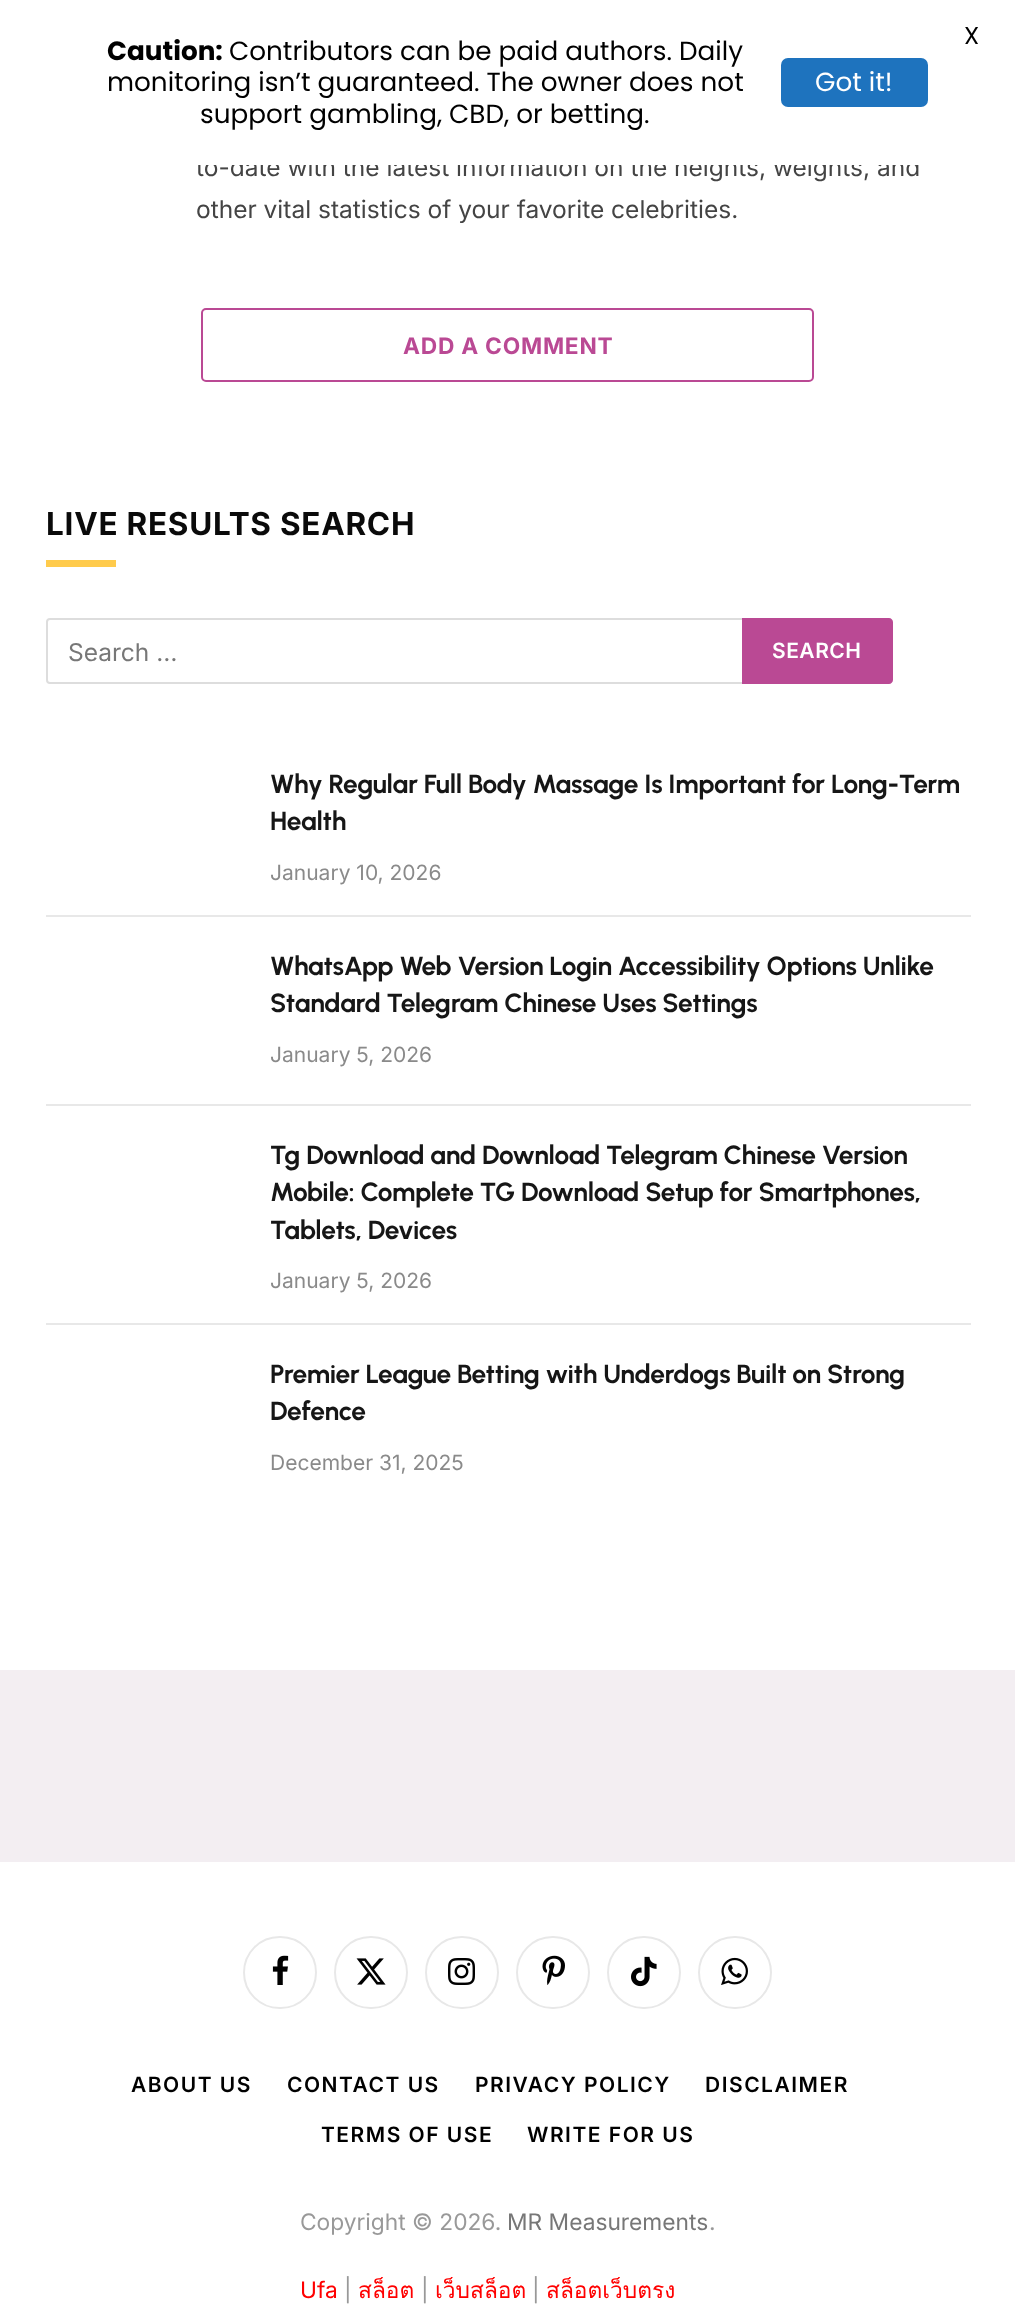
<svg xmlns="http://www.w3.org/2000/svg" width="1015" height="2307">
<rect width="100%" height="100%" fill="#fff"/>
<text x="196" y="176" style="font-family:Inter;font-size:24.5px;fill:#444">to-date with the latest information on the heights, weights, and</text>
<rect x="196" y="157" width="723" height="8" fill="#fff"/>
<text x="964" y="44" style="font-family:Poppins;font-size:24.5px;fill:#000">X</text>
<text x="107" y="60" style="font-family:Poppins;font-size:26.25px;font-weight:bold;fill:#000">Caution:</text>
<text x="229" y="60" style="font-family:Poppins;font-size:26.25px;fill:#000">Contributors can be paid authors. Daily</text>
<text x="107" y="91" style="font-family:Poppins;font-size:26.25px;fill:#000">monitoring isn’t guaranteed. The owner does not</text>
<text x="200" y="123" style="font-family:Poppins;font-size:26.25px;fill:#000">support gambling, CBD, or betting.</text>
<rect x="781" y="58" width="147" height="49" rx="7" fill="#1e73be"/>
<text x="815" y="91" style="font-family:Poppins;font-size:26.25px;fill:#fff">Got it!</text>
<text x="196" y="218" style="font-family:Inter;font-size:24.5px;fill:#444">other vital statistics of your favorite celebrities.</text>
<rect x="202" y="309" width="611" height="72" rx="4" fill="none" stroke="#ba4994" stroke-width="2"/>
<text x="403" y="354" style="font-family:Inter;font-size:22.75px;font-weight:bold;letter-spacing:0.75px;fill:#ba4994">ADD A COMMENT</text>
<text x="46" y="535" style="font-family:Inter;font-size:31.5px;font-weight:bold;letter-spacing:0.75px;fill:#0a0a0a">LIVE RESULTS SEARCH</text>
<rect x="46" y="560" width="70" height="7" fill="#ffcb4c"/>
<rect x="47" y="619" width="698" height="64" rx="3" fill="none" stroke="#ddd" stroke-width="2"/>
<text x="68" y="661" style="font-family:Inter;font-size:24.5px;fill:#777">Search …</text>
<path d="M742 618h147c2 0 4 2 4 4v58c0 2-2 4-4 4h-147z" fill="#ba4994"/>
<text x="772" y="658" style="font-family:Inter;font-size:21px;font-weight:600;letter-spacing:0.5px;fill:#fff">SEARCH</text>
<text x="270" y="793" style="font-family:Urbanist;font-size:26.25px;font-weight:bold;letter-spacing:-0.25px;fill:#161616">Why Regular Full Body Massage Is Important for Long-Term</text>
<text x="270" y="830" style="font-family:Urbanist;font-size:26.25px;font-weight:bold;letter-spacing:-0.25px;fill:#161616">Health</text>
<text x="270" y="880" style="font-family:Inter;font-size:21px;fill:#8a8a8a">January 10, 2026</text>
<rect x="46" y="915" width="925" height="2" fill="#e8e8e8"/>
<text x="270" y="975" style="font-family:Urbanist;font-size:26.25px;font-weight:bold;letter-spacing:-0.25px;fill:#161616">WhatsApp Web Version Login Accessibility Options Unlike</text>
<text x="270" y="1012" style="font-family:Urbanist;font-size:26.25px;font-weight:bold;letter-spacing:-0.25px;fill:#161616">Standard Telegram Chinese Uses Settings</text>
<text x="270" y="1062" style="font-family:Inter;font-size:21px;fill:#8a8a8a">January 5, 2026</text>
<rect x="46" y="1104" width="925" height="2" fill="#e8e8e8"/>
<text x="270" y="1164" style="font-family:Urbanist;font-size:26.25px;font-weight:bold;letter-spacing:-0.25px;fill:#161616">Tg Download and Download Telegram Chinese Version</text>
<text x="270" y="1201" style="font-family:Urbanist;font-size:26.25px;font-weight:bold;letter-spacing:-0.25px;fill:#161616">Mobile: Complete TG Download Setup for Smartphones,</text>
<text x="270" y="1239" style="font-family:Urbanist;font-size:26.25px;font-weight:bold;letter-spacing:-0.25px;fill:#161616">Tablets, Devices</text>
<text x="270" y="1288" style="font-family:Inter;font-size:21px;fill:#8a8a8a">January 5, 2026</text>
<rect x="46" y="1323" width="925" height="2" fill="#e8e8e8"/>
<text x="270" y="1383" style="font-family:Urbanist;font-size:26.25px;font-weight:bold;letter-spacing:-0.25px;fill:#161616">Premier League Betting with Underdogs Built on Strong</text>
<text x="270" y="1420" style="font-family:Urbanist;font-size:26.25px;font-weight:bold;letter-spacing:-0.25px;fill:#161616">Defence</text>
<text x="270" y="1470" style="font-family:Inter;font-size:21px;fill:#8a8a8a">December 31, 2025</text>
<rect y="1670" width="1015" height="192" fill="#f3eef2"/>
<rect x="244" y="1937" width="72" height="71" rx="35.5" fill="none" stroke="#e8e8e8" stroke-width="2"/>
<image x="272" y="1955" width="17" height="30" href="media/1.png"/>
<rect x="335" y="1937" width="72" height="71" rx="35.5" fill="none" stroke="#e8e8e8" stroke-width="2"/>
<image x="356" y="1958" width="30" height="27" href="media/2.png"/>
<rect x="426" y="1937" width="72" height="71" rx="35.5" fill="none" stroke="#e8e8e8" stroke-width="2"/>
<image x="448" y="1958" width="27" height="27" href="media/3.png"/>
<rect x="517" y="1937" width="72" height="71" rx="35.5" fill="none" stroke="#e8e8e8" stroke-width="2"/>
<image x="542" y="1955" width="23" height="30" href="media/4.png"/>
<rect x="608" y="1937" width="72" height="71" rx="35.5" fill="none" stroke="#e8e8e8" stroke-width="2"/>
<image x="631" y="1956" width="26" height="31" href="media/5.png"/>
<rect x="699" y="1937" width="72" height="71" rx="35.5" fill="none" stroke="#e8e8e8" stroke-width="2"/>
<image x="721" y="1957" width="27" height="28" href="media/6.png"/>
<text x="131" y="2092" style="font-family:Inter;font-size:21px;font-weight:600;letter-spacing:1.5px;fill:#000">ABOUT US</text>
<text x="287" y="2092" style="font-family:Inter;font-size:21px;font-weight:600;letter-spacing:1.5px;fill:#000">CONTACT US</text>
<text x="475" y="2092" style="font-family:Inter;font-size:21px;font-weight:600;letter-spacing:1.5px;fill:#000">PRIVACY POLICY</text>
<text x="705" y="2092" style="font-family:Inter;font-size:21px;font-weight:600;letter-spacing:1.5px;fill:#000">DISCLAIMER</text>
<text x="321" y="2142" style="font-family:Inter;font-size:21px;font-weight:600;letter-spacing:1.5px;fill:#000">TERMS OF USE</text>
<text x="527" y="2142" style="font-family:Inter;font-size:21px;font-weight:600;letter-spacing:1.5px;fill:#000">WRITE FOR US</text>
<text x="300" y="2230" style="font-family:Inter;font-size:22.75px;fill:#999">Copyright © 2026.</text>
<text x="507" y="2230" style="font-family:Inter;font-size:22.75px;fill:#777">MR Measurements</text>
<text x="709" y="2230" style="font-family:Inter;font-size:22.75px;fill:#999">.</text>
<text x="300" y="2298" style="font-family:Inter;font-size:22.75px;fill:#f00">Ufa</text>
<text x="344" y="2298" style="font-family:Inter;font-size:22.75px;fill:#999">|</text>
<text x="358" y="2298" style="font-family:Loma;font-size:22.75px;fill:#f00">สล็อต</text>
<text x="421" y="2298" style="font-family:Inter;font-size:22.75px;fill:#999">|</text>
<text x="435" y="2298" style="font-family:Loma;font-size:22.75px;fill:#f00">เว็บสล็อต</text>
<text x="532" y="2298" style="font-family:Inter;font-size:22.75px;fill:#999">|</text>
<text x="546" y="2298" style="font-family:Loma;font-size:22.75px;fill:#f00">สล็อตเว็บตรง</text>
</svg>
